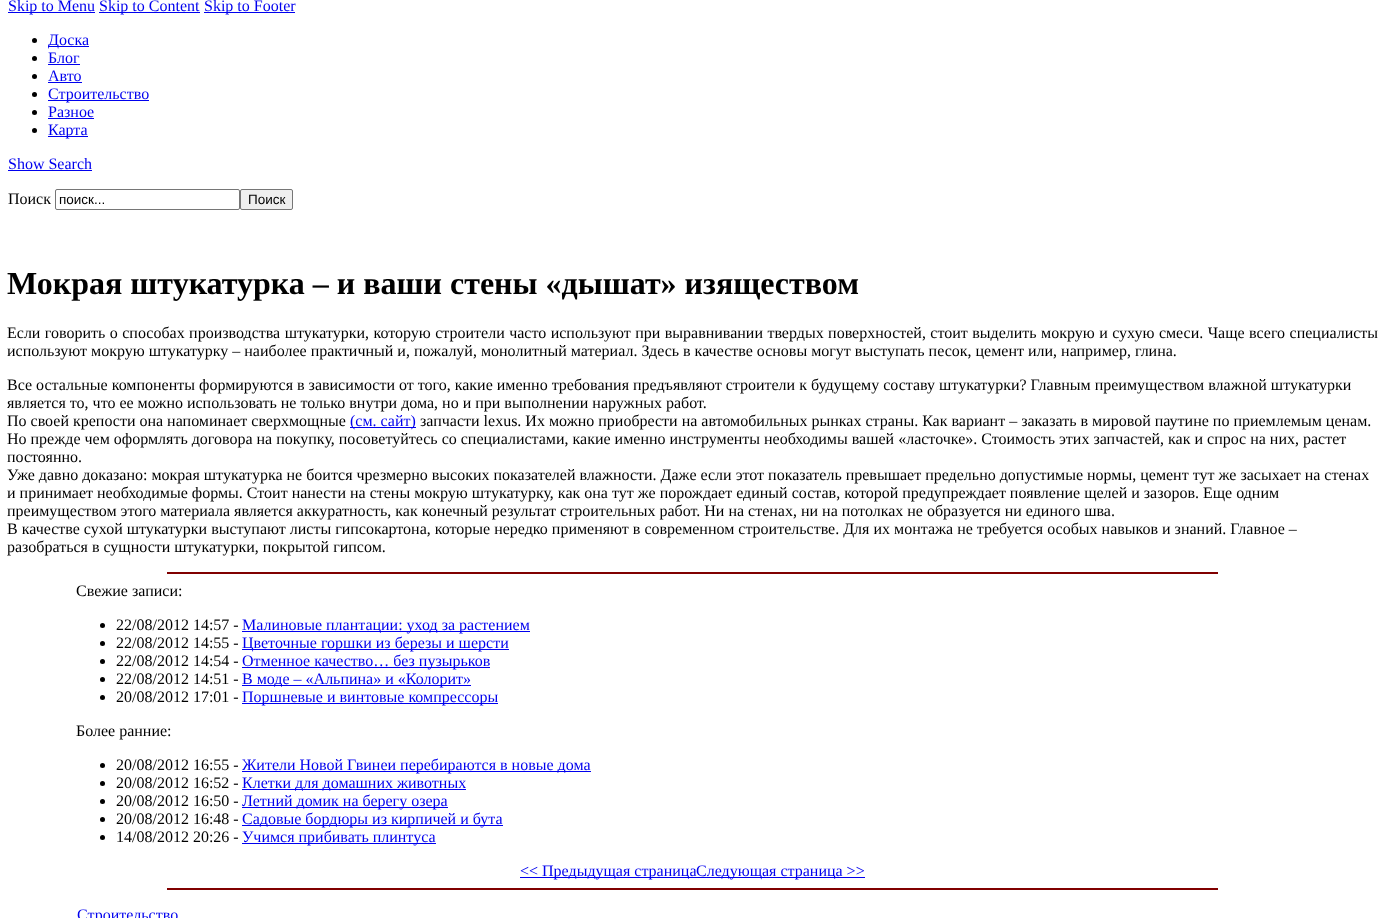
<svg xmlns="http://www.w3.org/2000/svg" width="1385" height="918">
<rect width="100%" height="100%" fill="#fff"/>
<rect x="8" y="12" width="87" height="1" fill="#00e"/>
<text x="8" y="11" style="font-family:Liberation Serif;font-size:16px;fill:#00e">Skip to Menu</text>
<rect x="99" y="12" width="101" height="1" fill="#00e"/>
<text x="99" y="11" style="font-family:Liberation Serif;font-size:16px;fill:#00e">Skip to Content</text>
<rect x="204" y="12" width="91" height="1" fill="#00e"/>
<text x="204" y="11" style="font-family:Liberation Serif;font-size:16px;fill:#00e">Skip to Footer</text>
<circle cx="34.5" cy="40.5" r="2.5" fill="#000"/>
<rect x="48" y="46" width="41" height="1" fill="#00e"/>
<text x="48" y="45" style="font-family:Liberation Serif;font-size:16px;fill:#00e">Доска</text>
<circle cx="34.5" cy="58.5" r="2.5" fill="#000"/>
<text x="48" y="63" style="font-family:Liberation Serif;font-size:16px;fill:#00e">Блог</text>
<rect x="48" y="64" width="32" height="1" fill="#00e"/>
<circle cx="34.5" cy="76.5" r="2.5" fill="#000"/>
<text x="48" y="81" style="font-family:Liberation Serif;font-size:16px;fill:#00e">Авто</text>
<rect x="48" y="82" width="34" height="1" fill="#00e"/>
<circle cx="34.5" cy="94.5" r="2.5" fill="#000"/>
<rect x="48" y="100" width="101" height="1" fill="#00e"/>
<text x="48" y="99" style="font-family:Liberation Serif;font-size:16px;fill:#00e">Строительство</text>
<circle cx="34.5" cy="112.5" r="2.5" fill="#000"/>
<text x="48" y="117" style="font-family:Liberation Serif;font-size:16px;fill:#00e">Разное</text>
<rect x="48" y="118" width="46" height="1" fill="#00e"/>
<circle cx="34.5" cy="130.5" r="2.5" fill="#000"/>
<rect x="48" y="136" width="40" height="1" fill="#00e"/>
<text x="48" y="135" style="font-family:Liberation Serif;font-size:16px;fill:#00e">Карта</text>
<text x="8" y="169" style="font-family:Liberation Serif;font-size:16px;fill:#00e">Show Search</text>
<rect x="8" y="170" width="84" height="1" fill="#00e"/>
<text x="8" y="204" style="font-family:Liberation Serif;font-size:16px;fill:#000">Поиск</text>
<rect x="55.5" y="189.5" width="184" height="20" rx="1.5" fill="none" stroke="#767676"/>
<text x="59" y="204" style="font-family:Liberation Sans;font-size:13.5px;fill:#000">поиск...</text>
<rect x="240.5" y="189.5" width="52" height="20" rx="1.5" fill="#efefef" stroke="#767676"/>
<text x="248" y="204" style="font-family:Liberation Sans;font-size:13.5px;fill:#000">Поиск</text>
<text x="7" y="294" style="font-family:Liberation Serif;font-size:32px;font-weight:bold;fill:#000">Мокрая штукатурка – и ваши стены «дышат» изяществом</text>
<text x="7" y="338" word-spacing="0.45" style="font-family:Liberation Serif;font-size:16px;fill:#000">Если говорить о способах производства штукатурки, которую строители часто используют при выравнивании твердых поверхностей, стоит выделить мокрую и сухую смеси. Чаще всего специалисты</text>
<text x="7" y="356" style="font-family:Liberation Serif;font-size:16px;fill:#000">используют мокрую штукатурку – наиболее практичный и, пожалуй, монолитный материал. Здесь в качестве основы могут выступать песок, цемент или, например, глина.</text>
<text x="7" y="390" style="font-family:Liberation Serif;font-size:16px;fill:#000">Все остальные компоненты формируются в зависимости от того, какие именно требования предъявляют строители к будущему составу штукатурки? Главным преимуществом влажной штукатурки</text>
<text x="7" y="408" style="font-family:Liberation Serif;font-size:16px;fill:#000">является то, что ее можно использовать не только внутри дома, но и при выполнении наружных работ.</text>
<text x="7" y="426" style="font-family:Liberation Serif;font-size:16px;fill:#000">По своей крепости она напоминает сверхмощные</text>
<rect x="350" y="427" width="66" height="1" fill="#00e"/>
<text x="350" y="426" style="font-family:Liberation Serif;font-size:16px;fill:#00e">(см. сайт)</text>
<text x="420" y="426" style="font-family:Liberation Serif;font-size:16px;fill:#000">запчасти lexus. Их можно приобрести на автомобильных рынках страны. Как вариант – заказать в мировой паутине по приемлемым ценам.</text>
<text x="7" y="444" style="font-family:Liberation Serif;font-size:16px;fill:#000">Но прежде чем оформлять договора на покупку, посоветуйтесь со специалистами, какие именно инструменты необходимы вашей «ласточке». Стоимость этих запчастей, как и спрос на них, растет</text>
<text x="7" y="462" style="font-family:Liberation Serif;font-size:16px;fill:#000">постоянно.</text>
<text x="7" y="480" style="font-family:Liberation Serif;font-size:16px;fill:#000">Уже давно доказано: мокрая штукатурка не боится чрезмерно высоких показателей влажности. Даже если этот показатель превышает предельно допустимые нормы, цемент тут же засыхает на стенах</text>
<text x="7" y="498" style="font-family:Liberation Serif;font-size:16px;fill:#000">и принимает необходимые формы. Стоит нанести на стены мокрую штукатурку, как она тут же порождает единый состав, которой предупреждает появление щелей и зазоров. Еще одним</text>
<text x="7" y="516" style="font-family:Liberation Serif;font-size:16px;fill:#000">преимуществом этого материала является аккуратность, как конечный результат строительных работ. Ни на стенах, ни на потолках не образуется ни единого шва.</text>
<text x="7" y="534" style="font-family:Liberation Serif;font-size:16px;fill:#000">В качестве сухой штукатурки выступают листы гипсокартона, которые нередко применяют в современном строительстве. Для их монтажа не требуется особых навыков и знаний. Главное –</text>
<text x="7" y="552" style="font-family:Liberation Serif;font-size:16px;fill:#000">разобраться в сущности штукатурки, покрытой гипсом.</text>
<rect x="167" y="572" width="1051" height="2" fill="#800000"/>
<text x="76" y="596" style="font-family:Liberation Serif;font-size:16px;fill:#000">Свежие записи:</text>
<circle cx="102.5" cy="625.5" r="2.5" fill="#000"/>
<text x="116" y="630" style="font-family:Liberation Serif;font-size:16px;fill:#000">22/08/2012 14:57 -</text>
<rect x="242" y="631" width="288" height="1" fill="#00e"/>
<text x="242" y="630" style="font-family:Liberation Serif;font-size:16px;fill:#00e">Малиновые плантации: уход за растением</text>
<circle cx="102.5" cy="643.5" r="2.5" fill="#000"/>
<text x="116" y="648" style="font-family:Liberation Serif;font-size:16px;fill:#000">22/08/2012 14:55 -</text>
<rect x="242" y="649" width="267" height="1" fill="#00e"/>
<text x="242" y="648" style="font-family:Liberation Serif;font-size:16px;fill:#00e">Цветочные горшки из березы и шерсти</text>
<circle cx="102.5" cy="661.5" r="2.5" fill="#000"/>
<text x="116" y="666" style="font-family:Liberation Serif;font-size:16px;fill:#000">22/08/2012 14:54 -</text>
<rect x="242" y="667" width="248" height="1" fill="#00e"/>
<text x="242" y="666" style="font-family:Liberation Serif;font-size:16px;fill:#00e">Отменное качество… без пузырьков</text>
<circle cx="102.5" cy="679.5" r="2.5" fill="#000"/>
<text x="116" y="684" style="font-family:Liberation Serif;font-size:16px;fill:#000">22/08/2012 14:51 -</text>
<rect x="242" y="685" width="229" height="1" fill="#00e"/>
<text x="242" y="684" style="font-family:Liberation Serif;font-size:16px;fill:#00e">В моде – «Альпина» и «Колорит»</text>
<circle cx="102.5" cy="697.5" r="2.5" fill="#000"/>
<text x="116" y="702" style="font-family:Liberation Serif;font-size:16px;fill:#000">20/08/2012 17:01 -</text>
<rect x="242" y="703" width="256" height="1" fill="#00e"/>
<text x="242" y="702" style="font-family:Liberation Serif;font-size:16px;fill:#00e">Поршневые и винтовые компрессоры</text>
<text x="76" y="736" style="font-family:Liberation Serif;font-size:16px;fill:#000">Более ранние:</text>
<circle cx="102.5" cy="765.5" r="2.5" fill="#000"/>
<text x="116" y="770" style="font-family:Liberation Serif;font-size:16px;fill:#000">20/08/2012 16:55 -</text>
<rect x="242" y="771" width="349" height="1" fill="#00e"/>
<text x="242" y="770" style="font-family:Liberation Serif;font-size:16px;fill:#00e">Жители Новой Гвинеи перебираются в новые дома</text>
<circle cx="102.5" cy="783.5" r="2.5" fill="#000"/>
<text x="116" y="788" style="font-family:Liberation Serif;font-size:16px;fill:#000">20/08/2012 16:52 -</text>
<rect x="242" y="789" width="224" height="1" fill="#00e"/>
<text x="242" y="788" style="font-family:Liberation Serif;font-size:16px;fill:#00e">Клетки для домашних животных</text>
<circle cx="102.5" cy="801.5" r="2.5" fill="#000"/>
<text x="116" y="806" style="font-family:Liberation Serif;font-size:16px;fill:#000">20/08/2012 16:50 -</text>
<rect x="242" y="807" width="206" height="1" fill="#00e"/>
<text x="242" y="806" style="font-family:Liberation Serif;font-size:16px;fill:#00e">Летний домик на берегу озера</text>
<circle cx="102.5" cy="819.5" r="2.5" fill="#000"/>
<text x="116" y="824" style="font-family:Liberation Serif;font-size:16px;fill:#000">20/08/2012 16:48 -</text>
<rect x="242" y="825" width="261" height="1" fill="#00e"/>
<text x="242" y="824" style="font-family:Liberation Serif;font-size:16px;fill:#00e">Садовые бордюры из кирпичей и бута</text>
<circle cx="102.5" cy="837.5" r="2.5" fill="#000"/>
<text x="116" y="842" style="font-family:Liberation Serif;font-size:16px;fill:#000">14/08/2012 20:26 -</text>
<rect x="242" y="843" width="194" height="1" fill="#00e"/>
<text x="242" y="842" style="font-family:Liberation Serif;font-size:16px;fill:#00e">Учимся прибивать плинтуса</text>
<rect x="520" y="877" width="176" height="1" fill="#00e"/>
<text x="520" y="876" style="font-family:Liberation Serif;font-size:16px;fill:#00e">&lt;&lt; Предыдущая страница</text>
<rect x="696" y="877" width="169" height="1" fill="#00e"/>
<text x="696" y="876" style="font-family:Liberation Serif;font-size:16px;fill:#00e">Следующая страница &gt;&gt;</text>
<rect x="167" y="888" width="1051" height="2" fill="#800000"/>
<text x="77" y="920" style="font-family:Liberation Serif;font-size:16px;fill:#00e">Строительство</text>
</svg>
